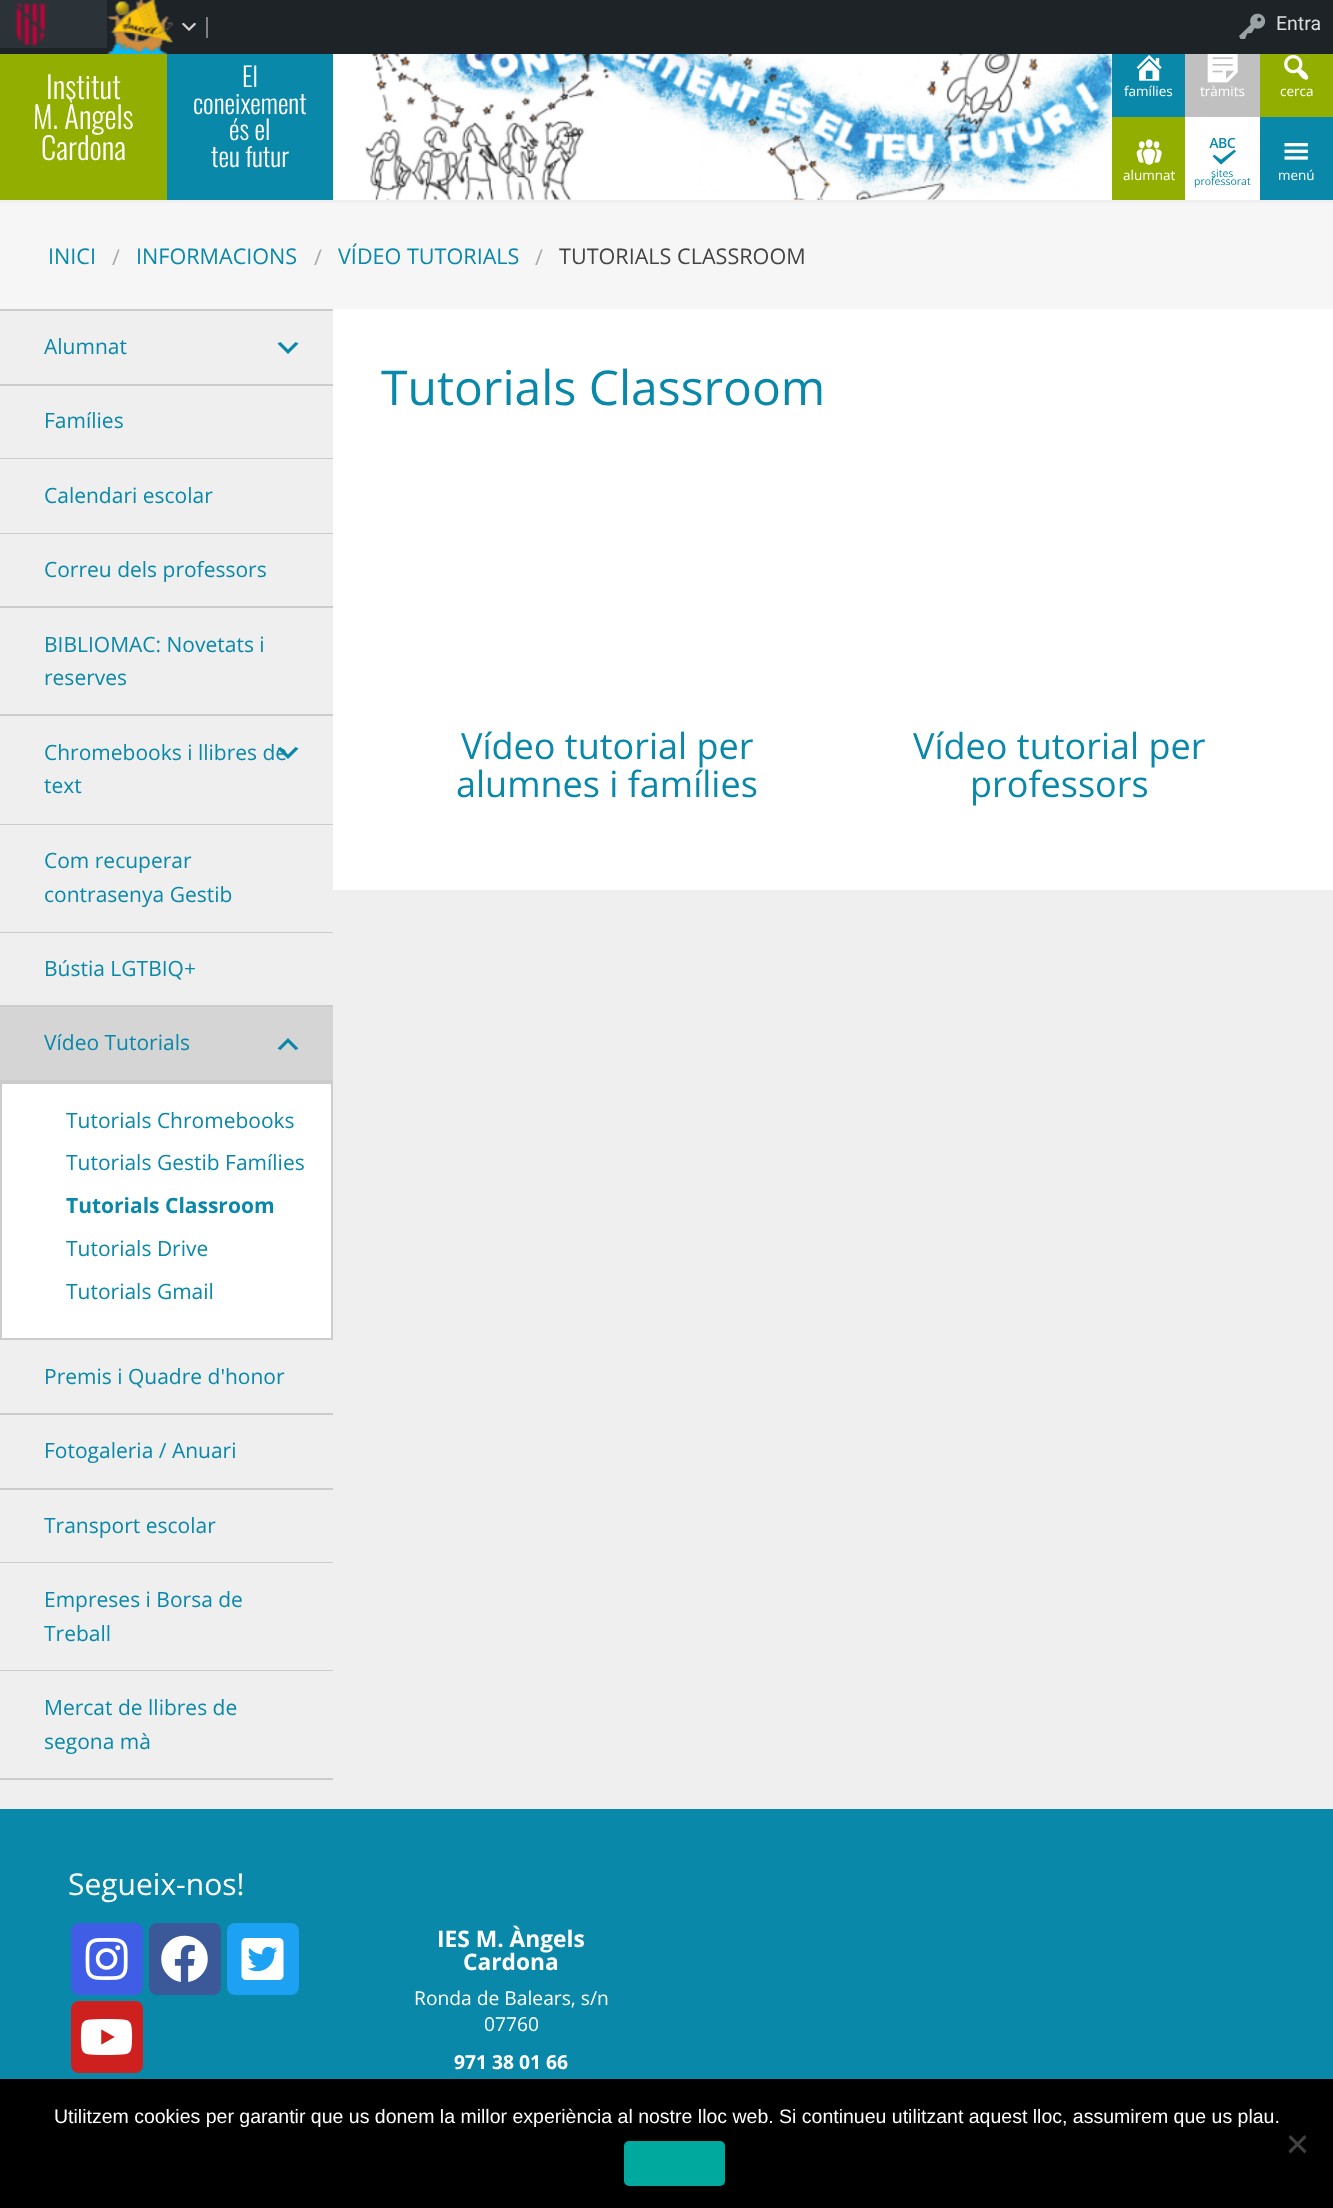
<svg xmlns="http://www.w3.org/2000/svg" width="1333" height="2208">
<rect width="100%" height="100%" fill="#efefef"/>
<rect width="1333" height="54" fill="#1d2327"/>
<rect width="107" height="48" fill="#2c3338"/>
<image x="15" y="2" width="31" height="45" href="media/1.png"/>
<image x="107" y="0" width="66" height="54" href="media/2.png"/>
<rect x="206" y="17" width="2" height="21" fill="#808080"/>
<image x="181" y="22" width="16" height="9" href="media/3.png"/>
<image x="1239" y="13" width="27" height="26" href="media/4.png"/>
<text x="1276" y="30" style="font-family:Roboto;font-size:19.5px;fill:#ddd">Entra</text>
<rect y="54" width="167" height="146" fill="#92ae01"/>
<text x="46" y="99" style="font-family:Oswald;font-size:30.5px;font-weight:300;fill:#fff">Institut</text>
<text x="33" y="129" style="font-family:Oswald;font-size:30.5px;font-weight:300;fill:#fff">M. Àngels</text>
<text x="41" y="160" style="font-family:Oswald;font-size:30.5px;font-weight:300;fill:#fff">Cardona</text>
<rect x="167" y="54" width="166" height="146" fill="#0988a9"/>
<text x="242" y="87" style="font-family:Oswald;font-size:26.5px;font-weight:300;fill:#fff">El</text>
<text x="193" y="114" style="font-family:Oswald;font-size:26.5px;font-weight:300;fill:#fff">coneixement</text>
<text x="229" y="140" style="font-family:Oswald;font-size:26.5px;font-weight:300;fill:#fff">és el</text>
<text x="211" y="167" style="font-family:Oswald;font-size:26.5px;font-weight:300;fill:#fff">teu futur</text>
<rect x="333" y="54" width="779" height="146" fill="#fff"/>
<image x="333" y="54" width="779" height="146" href="media/5.png"/>
<rect x="1112" y="54" width="73" height="63" fill="#0988a9"/>
<image x="1136" y="54" width="26" height="27" href="media/6.png"/>
<text x="1124" y="96" style="font-family:Open Sans;font-size:13.5px;fill:#fff">famílies</text>
<rect x="1185" y="54" width="75" height="63" fill="#c0c0c0"/>
<image x="1207" y="54" width="31" height="29" href="media/7.png"/>
<text x="1200" y="96" style="font-family:Open Sans;font-size:13.5px;fill:#fff">tràmits</text>
<rect x="1260" y="54" width="73" height="63" fill="#92ae01"/>
<image x="1284" y="54" width="25" height="26" href="media/8.png"/>
<text x="1280" y="96" style="font-family:Open Sans;font-size:13.5px;fill:#fff">cerca</text>
<rect x="1112" y="117" width="73" height="83" fill="#92ae01"/>
<image x="1136" y="139" width="26" height="26" href="media/9.png"/>
<text x="1123" y="180" style="font-family:Open Sans;font-size:13.5px;fill:#fff">alumnat</text>
<rect x="1185" y="117" width="75" height="83" fill="#fff"/>
<image x="1209" y="137" width="27" height="28" href="media/10.png"/>
<text x="1211" y="177" style="font-family:Open Sans;font-size:10.5px;fill:#0988a9">sites</text>
<text x="1194" y="185" style="font-family:Open Sans;font-size:10.5px;fill:#0988a9">professorat</text>
<rect x="1260" y="117" width="73" height="83" fill="#0988a9"/>
<image x="1284" y="143" width="24" height="17" href="media/11.png"/>
<text x="1278" y="180" style="font-family:Open Sans;font-size:13.5px;fill:#fff">menú</text>
<rect y="203" width="1333" height="106" fill="#f6f6f6"/>
<text x="48" y="264" style="font-family:Open Sans;font-size:21.6px;fill:#0988a9">INICI</text>
<text x="112" y="265" style="font-family:Open Sans;font-size:21.6px;fill:#aaa">/</text>
<text x="136" y="264" style="font-family:Open Sans;font-size:21.6px;fill:#0988a9">INFORMACIONS</text>
<text x="314" y="265" style="font-family:Open Sans;font-size:21.6px;fill:#aaa">/</text>
<text x="338" y="264" style="font-family:Open Sans;font-size:21.6px;fill:#0988a9">VÍDEO TUTORIALS</text>
<text x="535" y="265" style="font-family:Open Sans;font-size:21.6px;fill:#aaa">/</text>
<text x="559" y="264" style="font-family:Open Sans;font-size:21.6px;fill:#444">TUTORIALS CLASSROOM</text>
<rect y="309" width="333" height="2" fill="#ccc"/>
<rect y="384" width="333" height="2" fill="#ccc"/>
<text x="44" y="354" style="font-family:Open Sans;font-size:21px;fill:#0988a9">Alumnat</text>
<path d="M280.5 342l7.5 7.5l7.5-7.5l3 1.5l-10.5 10.5l-10.5-10.5z" fill="#0988a9"/>
<rect y="458" width="333" height="1" fill="#ccc"/>
<text x="44" y="428" style="font-family:Open Sans;font-size:21px;fill:#0988a9">Famílies</text>
<rect y="533" width="333" height="1" fill="#ccc"/>
<text x="44" y="503" style="font-family:Open Sans;font-size:21px;fill:#0988a9">Calendari escolar</text>
<rect y="606" width="333" height="2" fill="#ccc"/>
<text x="44" y="577" style="font-family:Open Sans;font-size:21px;fill:#0988a9">Correu dels professors</text>
<rect y="714" width="333" height="2" fill="#ccc"/>
<text x="44" y="652" style="font-family:Open Sans;font-size:21px;fill:#0988a9">BIBLIOMAC: Novetats i</text>
<text x="44" y="685" style="font-family:Open Sans;font-size:21px;fill:#0988a9">reserves</text>
<rect y="824" width="333" height="1" fill="#ccc"/>
<text x="44" y="760" style="font-family:Open Sans;font-size:21px;fill:#0988a9">Chromebooks i llibres de</text>
<text x="44" y="793" style="font-family:Open Sans;font-size:21px;fill:#0988a9">text</text>
<path d="M280.5 747l7.5 7.5l7.5-7.5l3 1.5l-10.5 10.5l-10.5-10.5z" fill="#0988a9"/>
<rect y="932" width="333" height="1" fill="#ccc"/>
<text x="44" y="868" style="font-family:Open Sans;font-size:21px;fill:#0988a9">Com recuperar</text>
<text x="44" y="902" style="font-family:Open Sans;font-size:21px;fill:#0988a9">contrasenya Gestib</text>
<rect y="1005" width="333" height="2" fill="#ccc"/>
<text x="44" y="976" style="font-family:Open Sans;font-size:21px;fill:#0988a9">Bústia LGTBIQ+</text>
<rect y="1007" width="333" height="73" fill="#d5d5d5"/>
<rect y="1080" width="333" height="2" fill="#ccc"/>
<text x="44" y="1050" style="font-family:Open Sans;font-size:21px;fill:#0988a9">Vídeo Tutorials</text>
<path d="M295.5 1050l-7.5-7.5l-7.5 7.5l-3-1.5l10.5-10.5l10.5 10.5z" fill="#0988a9"/>
<rect x="1" y="1083" width="331" height="256" fill="#fff" stroke="#ccc" stroke-width="2"/>
<text x="66" y="1128" style="font-family:Open Sans;font-size:21px;fill:#0988a9">Tutorials Chromebooks</text>
<text x="66" y="1170" style="font-family:Open Sans;font-size:21px;fill:#0988a9">Tutorials Gestib Famílies</text>
<text x="66" y="1213" style="font-family:Open Sans;font-size:21px;font-weight:bold;fill:#0988a9">Tutorials Classroom</text>
<text x="66" y="1256" style="font-family:Open Sans;font-size:21px;fill:#0988a9">Tutorials Drive</text>
<text x="66" y="1299" style="font-family:Open Sans;font-size:21px;fill:#0988a9">Tutorials Gmail</text>
<rect y="1413" width="333" height="2" fill="#ccc"/>
<text x="44" y="1384" style="font-family:Open Sans;font-size:21px;fill:#0988a9">Premis i Quadre d'honor</text>
<rect y="1488" width="333" height="2" fill="#ccc"/>
<text x="44" y="1458" style="font-family:Open Sans;font-size:21px;fill:#0988a9">Fotogaleria / Anuari</text>
<rect y="1562" width="333" height="1" fill="#ccc"/>
<text x="44" y="1533" style="font-family:Open Sans;font-size:21px;fill:#0988a9">Transport escolar</text>
<rect y="1670" width="333" height="1" fill="#ccc"/>
<text x="44" y="1607" style="font-family:Open Sans;font-size:21px;fill:#0988a9">Empreses i Borsa de</text>
<text x="44" y="1641" style="font-family:Open Sans;font-size:21px;fill:#0988a9">Treball</text>
<rect y="1778" width="333" height="2" fill="#ccc"/>
<text x="44" y="1715" style="font-family:Open Sans;font-size:21px;fill:#0988a9">Mercat de llibres de</text>
<text x="44" y="1749" style="font-family:Open Sans;font-size:21px;fill:#0988a9">segona mà</text>
<rect x="333" y="309" width="1000" height="581" fill="#fff"/>
<text x="381" y="405" style="font-family:Open Sans;font-size:48px;fill:#0988a9">Tutorials Classroom</text>
<text x="461" y="759" style="font-family:Open Sans;font-size:36px;fill:#0988a9">Vídeo tutorial per</text>
<text x="456" y="797" style="font-family:Open Sans;font-size:36px;fill:#0988a9">alumnes i famílies</text>
<text x="913" y="759" style="font-family:Open Sans;font-size:36px;fill:#0988a9">Vídeo tutorial per</text>
<text x="970" y="797" style="font-family:Open Sans;font-size:36px;fill:#0988a9">professors</text>
<rect y="1809" width="1333" height="270" fill="#0988a9"/>
<text x="68" y="1895" style="font-family:Open Sans;font-size:30px;fill:#fff">Segueix-nos!</text>
<rect x="71" y="1923" width="72" height="72" rx="8" fill="#405de6"/>
<image x="85" y="1938" width="43" height="42" href="media/12.png"/>
<rect x="149" y="1923" width="72" height="72" rx="8" fill="#3b5998"/>
<image x="161" y="1935" width="47" height="47" href="media/13.png"/>
<rect x="227" y="1923" width="72" height="72" rx="8" fill="#1da1f2"/>
<image x="241" y="1938" width="43" height="42" href="media/14.png"/>
<rect x="71" y="2001" width="72" height="72" rx="8" fill="#cd201f"/>
<image x="80" y="2019" width="53" height="36" href="media/15.png"/>
<text x="437" y="1947" style="font-family:Open Sans;font-size:22.75px;font-weight:bold;fill:#fff">IES M. Àngels</text>
<text x="463" y="1970" style="font-family:Open Sans;font-size:22.75px;font-weight:bold;fill:#fff">Cardona</text>
<text x="414" y="2005" style="font-family:Open Sans;font-size:19.25px;fill:#fff">Ronda de Balears, s/n</text>
<text x="484" y="2031" style="font-family:Open Sans;font-size:19.25px;fill:#fff">07760</text>
<text x="454" y="2069" style="font-family:Open Sans;font-size:19.25px;font-weight:bold;fill:#fff">971 38 01 66</text>
<rect y="2079" width="1333" height="129" fill="#000"/>
<text x="54" y="2123" style="font-family:Liberation Sans;font-size:19.5px;fill:#fff">Utilitzem cookies per garantir que us donem la millor experiència al nostre lloc web. Si continueu utilitzant aquest lloc, assumirem que us plau.</text>
<rect x="624" y="2141" width="101" height="45" rx="5" fill="#00a99d"/>
<path d="M1304.5 2135l2 2.5l-16 16l-2-2.5z" fill="#404040"/>
<path d="M1288.5 2137.5l2-2.5l16 16l-2 2.5z" fill="#404040"/>
</svg>
